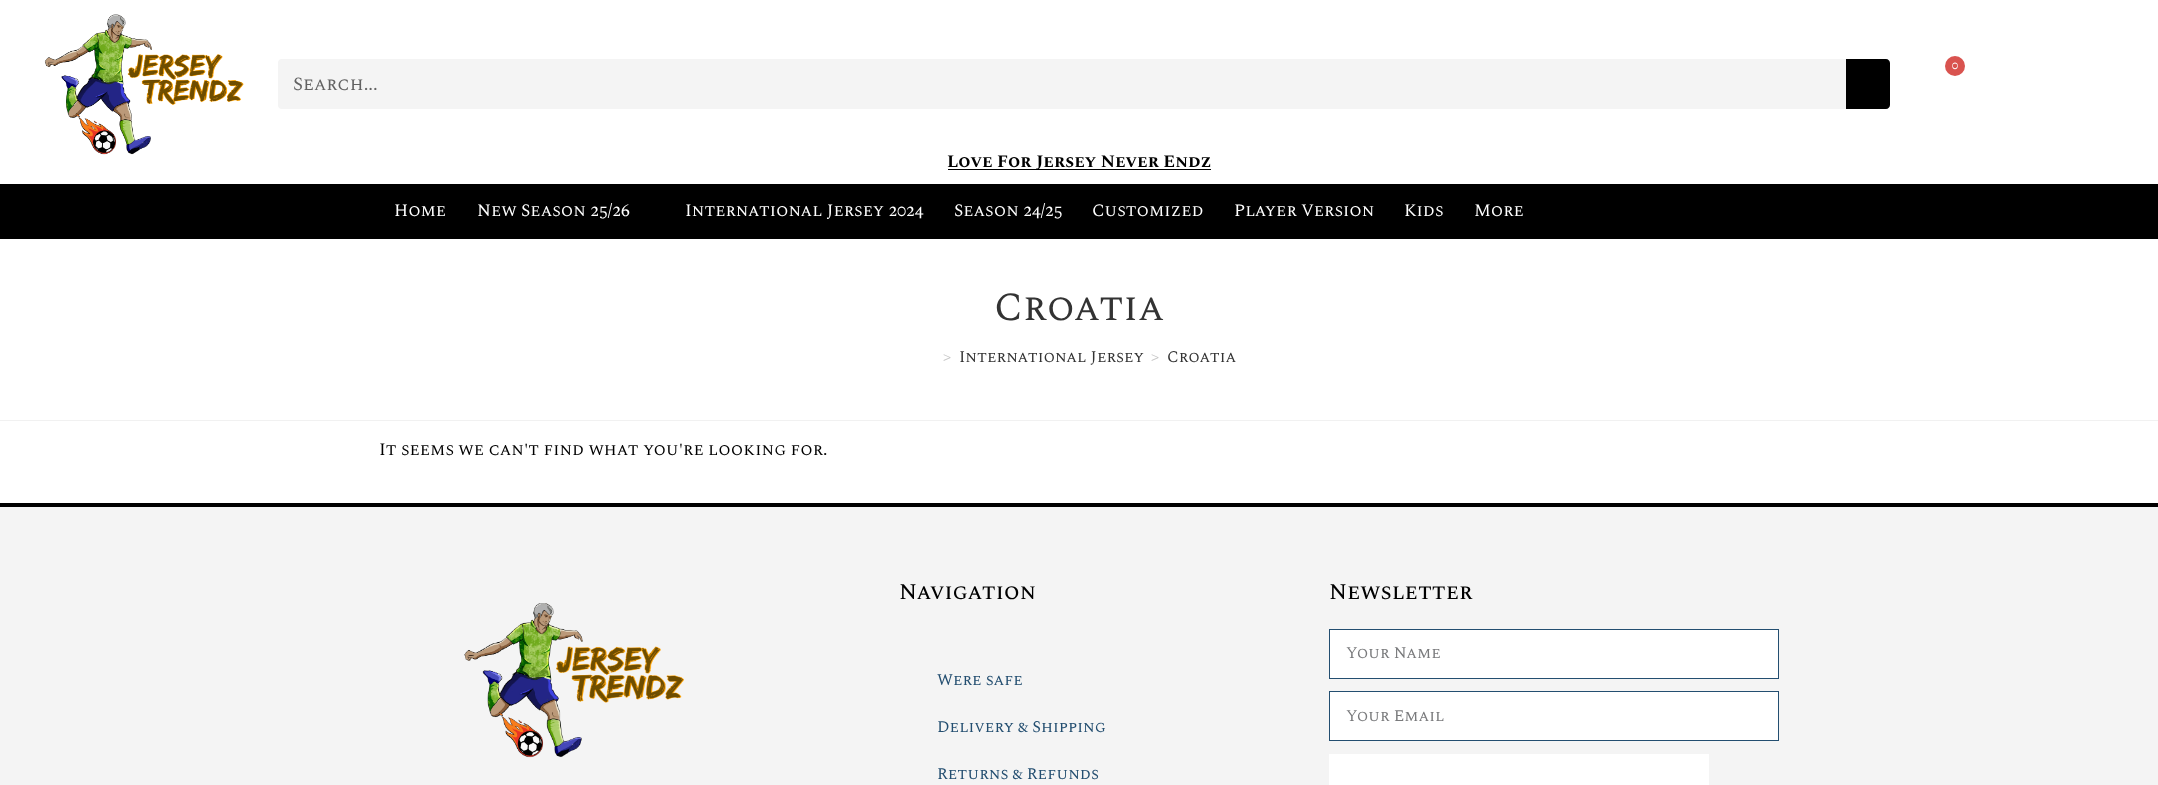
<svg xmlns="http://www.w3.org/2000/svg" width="2158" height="785">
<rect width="100%" height="100%" fill="#fff"/>
<image x="44" y="14" width="200" height="141" href="media/1.png"/>
<circle cx="1955" cy="66" r="10" fill="#d9534f"/>
<text x="1952" y="69" style="font-family:Spectral SC;font-size:12px;fill:#fff">0</text>
<rect x="278" y="59" width="1612" height="50" rx="4" fill="#f4f4f4"/>
<text x="293" y="90" style="font-family:Spectral SC;font-size:18.75px;fill:#626262">Search...</text>
<path d="M1846 59h40c2 0 4 2 4 4v42c0 2-2 4-4 4h-40z" fill="#000"/>
<rect x="948" y="169" width="263" height="1" fill="#000"/>
<text x="947" y="167" style="font-family:Spectral SC;font-size:17.5px;font-weight:bold;fill:#000">Love For Jersey Never Endz</text>
<rect y="184" width="2158" height="55" fill="#000"/>
<text x="394" y="216" style="font-family:Spectral SC;font-size:17.5px;fill:#fff">Home</text>
<text x="477" y="216" style="font-family:Spectral SC;font-size:17.5px;fill:#fff">New Season 25/26</text>
<text x="685" y="216" style="font-family:Spectral SC;font-size:17.5px;fill:#fff">International Jersey 2024</text>
<text x="954" y="216" style="font-family:Spectral SC;font-size:17.5px;fill:#fff">Season 24/25</text>
<text x="1092" y="216" style="font-family:Spectral SC;font-size:17.5px;fill:#fff">Customized</text>
<text x="1234" y="216" style="font-family:Spectral SC;font-size:17.5px;fill:#fff">Player Version</text>
<text x="1404" y="216" style="font-family:Spectral SC;font-size:17.5px;fill:#fff">Kids</text>
<text x="1474" y="216" style="font-family:Spectral SC;font-size:17.5px;fill:#fff">More</text>
<rect y="420" width="2158" height="1" fill="#f1f1f1"/>
<text x="994" y="320" style="font-family:Spectral SC;font-size:40px;fill:#333">Croatia</text>
<text x="943" y="362" style="font-family:Spectral SC;font-size:16.25px;fill:#c6c6c6">&gt;</text>
<text x="959" y="362" style="font-family:Spectral SC;font-size:16.25px;fill:#333">International Jersey</text>
<text x="1151" y="362" style="font-family:Spectral SC;font-size:16.25px;fill:#c6c6c6">&gt;</text>
<text x="1167" y="362" style="font-family:Spectral SC;font-size:16.25px;fill:#333">Croatia</text>
<text x="379" y="455" style="font-family:Spectral SC;font-size:17.5px;fill:#000">It seems we can't find what you're looking for.</text>
<rect y="507" width="2158" height="278" fill="#f4f4f4"/>
<rect y="503" width="2158" height="4" fill="#000"/>
<image x="464" y="603" width="220" height="155" href="media/2.png"/>
<text x="899" y="599" style="font-family:Spectral SC;font-size:22.5px;font-weight:500;fill:#000">Navigation</text>
<text x="937" y="685" style="font-family:Spectral SC;font-size:16.25px;fill:#234e70">Were safe</text>
<text x="937" y="732" style="font-family:Spectral SC;font-size:16.25px;fill:#234e70">Delivery &amp; Shipping</text>
<text x="937" y="779" style="font-family:Spectral SC;font-size:16.25px;fill:#234e70">Returns &amp; Refunds</text>
<text x="1329" y="599" style="font-family:Spectral SC;font-size:22.5px;font-weight:500;fill:#000">Newsletter</text>
<rect x="1329.5" y="629.5" width="449" height="49" fill="#fff" stroke="#234e70"/>
<text x="1346" y="658" style="font-family:Spectral SC;font-size:16.25px;fill:#797a7c">Your Name</text>
<rect x="1329.5" y="691.5" width="449" height="49" fill="#fff" stroke="#234e70"/>
<text x="1346" y="721" style="font-family:Spectral SC;font-size:16.25px;fill:#797a7c">Your Email</text>
<rect x="1329" y="754" width="380" height="31" fill="#fff"/>
</svg>
